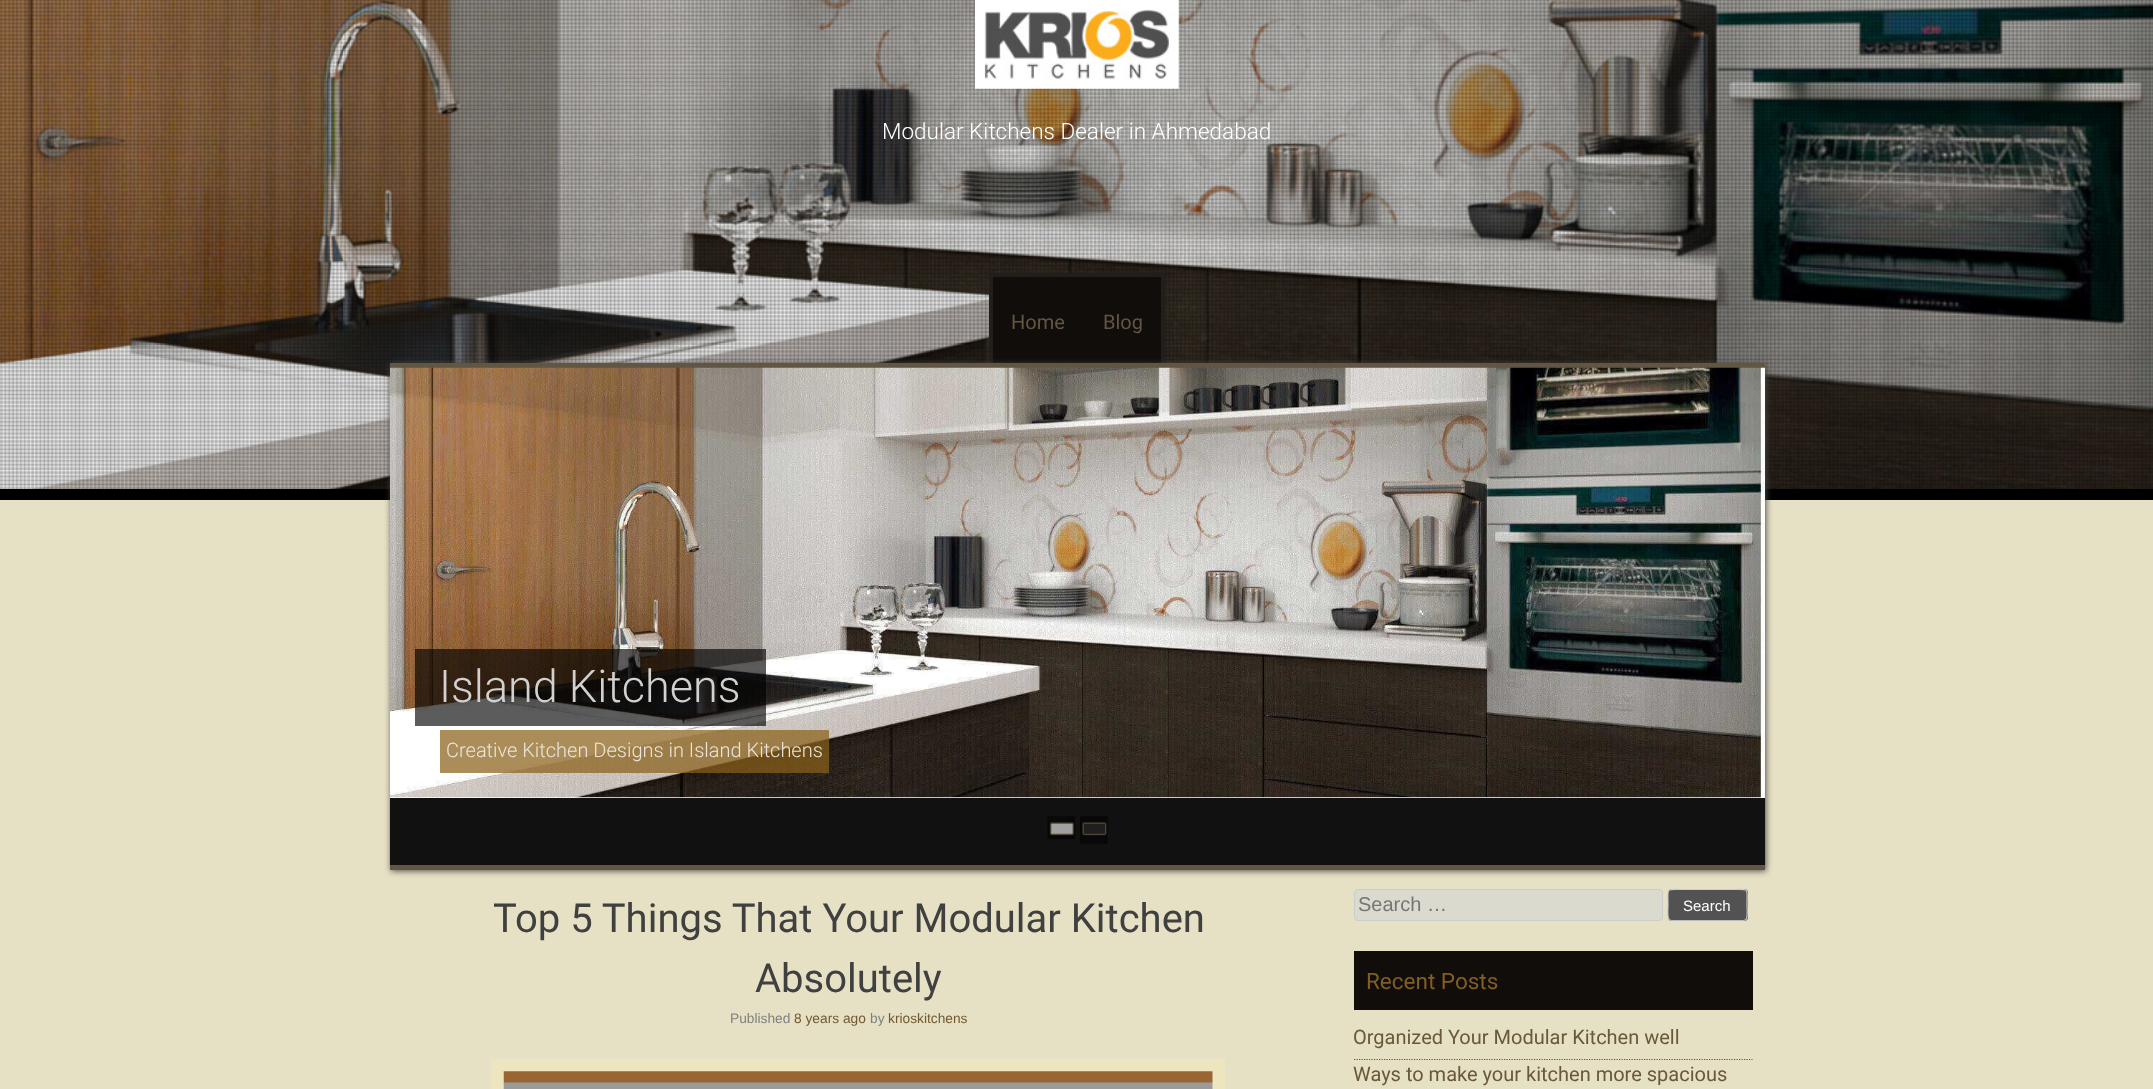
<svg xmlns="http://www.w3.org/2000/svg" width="2153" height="1089">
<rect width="100%" height="100%" fill="#e6e1c4"/>
<image x="0" y="0" width="2153" height="489" href="media/1.png"/>
<image x="0" y="0" width="2153" height="489" href="media/2.png"/>
<rect y="489" width="2153" height="11" fill="#000"/>
<image x="975" y="0" width="204" height="89" href="media/3.png"/>
<text x="882" y="139" style="font-family:Roboto;font-size:22.5px;font-weight:300;fill:#fff">Modular Kitchens Dealer in Ahmedabad</text>
<rect x="993" y="277" width="168" height="86" fill="#100d0a"/>
<rect x="991" y="275" width="172" height="96" fill="none" stroke="#211e1b" stroke-width="4"/>
<text x="1011" y="329" style="font-family:Roboto;font-size:20px;fill:#615642">Home</text>
<text x="1103" y="329" style="font-family:Roboto;font-size:20px;fill:#615642">Blog</text>
<rect x="391" y="364" width="1375" height="507" fill="#4a4a4a" filter="blur(3px)"/>
<rect x="390" y="798" width="1375" height="67" fill="#111"/>
<rect x="390" y="363" width="1375" height="5" fill="#615642"/>
<rect x="390" y="865" width="1375" height="5" fill="#615642"/>
<rect x="390" y="797" width="1375" height="1" fill="#fff"/>
<image x="390" y="367" width="1375" height="431" href="media/4.png"/>
<rect x="415" y="649" width="351" height="77" fill="#000000a3"/>
<text x="439" y="702" style="font-family:Roboto;font-size:45px;font-weight:300;fill:#d2d1d0">Island Kitchens</text>
<rect x="440" y="730" width="389" height="43" fill="#8a6119b8"/>
<text x="446" y="757" style="font-family:Roboto;font-size:20px;font-weight:300;fill:#ebe5db">Creative Kitchen Designs in Island Kitchens</text>
<image x="1047" y="816" width="28" height="23" href="media/5.png"/>
<image x="1080" y="816" width="28" height="28" href="media/6.png"/>
<text x="493" y="932" style="font-family:Roboto;font-size:40px;fill:#404040">Top 5 Things That Your Modular Kitchen</text>
<text x="755" y="992" style="font-family:Roboto;font-size:40px;fill:#404040">Absolutely</text>
<text x="730" y="1023" style="font-family:Liberation Sans;font-size:13.75px;fill:#808080">Published</text>
<text x="794" y="1023" style="font-family:Liberation Sans;font-size:13.75px;fill:#715a32">8 years ago</text>
<text x="870" y="1023" style="font-family:Liberation Sans;font-size:13.75px;fill:#808080">by</text>
<text x="888" y="1023" style="font-family:Liberation Sans;font-size:13.75px;fill:#715a32">krioskitchens</text>
<rect x="497.5" y="1065.5" width="721" height="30" fill="none" stroke="#ece5be" stroke-width="13"/>
<image x="503" y="1071" width="710" height="18" href="media/7.png"/>
<rect x="1354.5" y="889.5" width="308" height="31" rx="3.5" fill="#dbdacf" stroke="#ccc"/>
<text x="1358" y="911" style="font-family:Liberation Sans;font-size:20px;fill:#757575">Search …</text>
<rect x="1668" y="889" width="80" height="32" rx="4" fill="#525252"/>
<path d="M1746 919.5l-2 1h-73l-2-1" fill="none" stroke="#bbb" stroke-width="1.2"/>
<path d="M1669 919.5c-2-2-1-11.5-1-14.5c0-18-3-15.5 15.5-15.5h48c18.5 0 15.5-2.5 15.5 15.5c0 3 1 12.5-1 14.5" fill="none" stroke="#ccc" stroke-width="1.2"/>
<text x="1683" y="911" style="font-family:Liberation Sans;font-size:15px;fill:#fff">Search</text>
<rect x="1354" y="951" width="399" height="59" fill="#100d0a"/>
<text x="1366" y="989" style="font-family:Roboto;font-size:22.5px;fill:#825e21">Recent Posts</text>
<path d="M1354 1059.5h398.5" fill="none" stroke="#615642" stroke-width="1.2" stroke-dasharray="1.25 1.25"/>
<text x="1353" y="1044" style="font-family:Roboto;font-size:20px;fill:#69583a">Organized Your Modular Kitchen well</text>
<text x="1353" y="1081" style="font-family:Roboto;font-size:20px;fill:#69583a">Ways to make your kitchen more spacious</text>
</svg>
